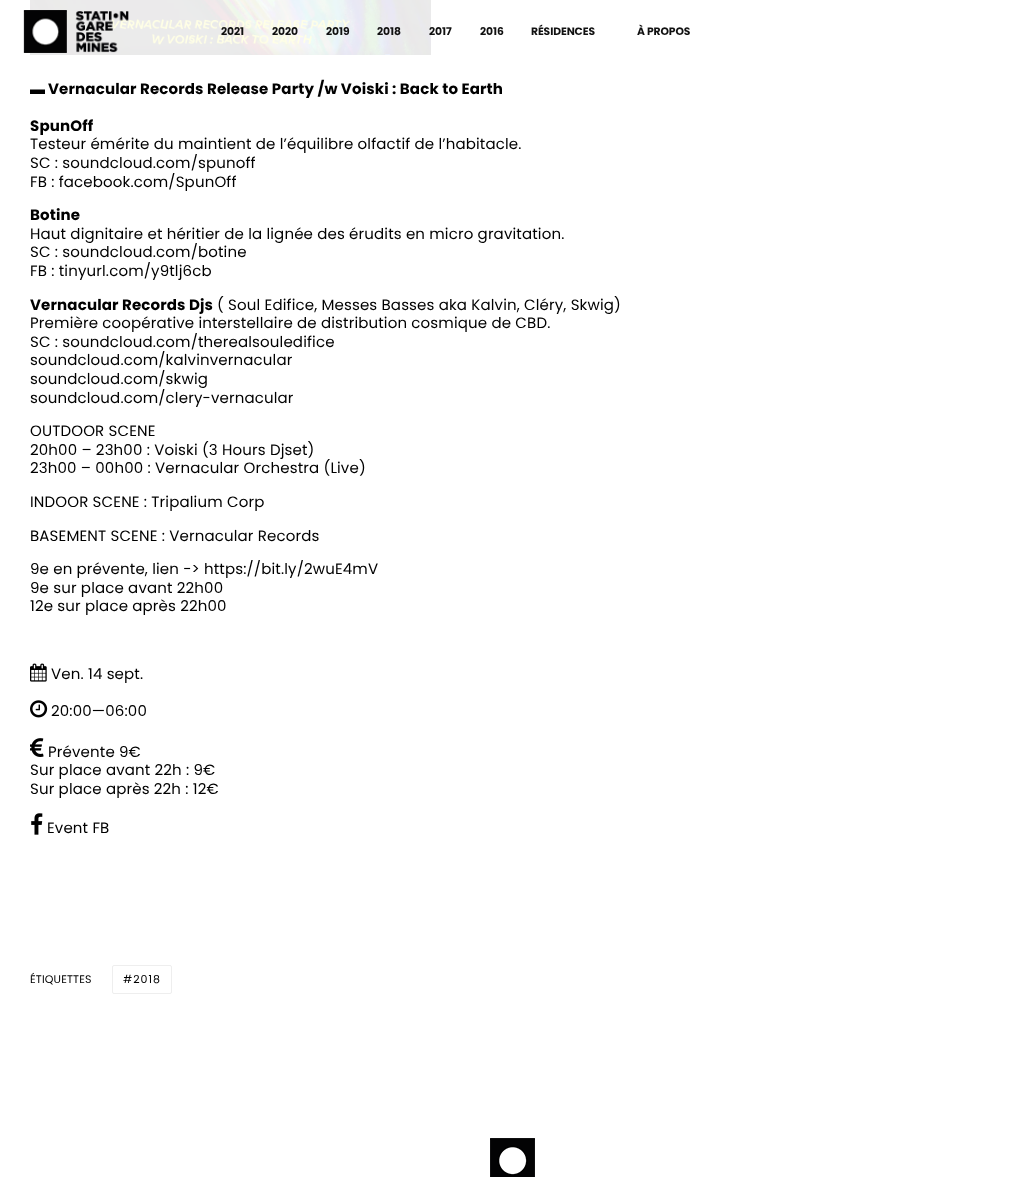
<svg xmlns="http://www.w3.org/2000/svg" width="1025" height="1177">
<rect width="100%" height="100%" fill="#fff"/>
<image x="30" y="0" width="401" height="55" href="media/2.png"/>
<image x="23" y="10" width="106" height="43" href="media/1.png"/>
<text x="221" y="35" style="font-family:Poppins;font-size:10.75px;font-weight:bold;letter-spacing:-0.1px;fill:#111">2021</text>
<text x="272" y="35" style="font-family:Poppins;font-size:10.75px;font-weight:bold;letter-spacing:-0.1px;fill:#111">2020</text>
<text x="326" y="35" style="font-family:Poppins;font-size:10.75px;font-weight:bold;letter-spacing:-0.1px;fill:#111">2019</text>
<text x="377" y="35" style="font-family:Poppins;font-size:10.75px;font-weight:bold;letter-spacing:-0.1px;fill:#111">2018</text>
<text x="429" y="35" style="font-family:Poppins;font-size:10.75px;font-weight:bold;letter-spacing:-0.1px;fill:#111">2017</text>
<text x="480" y="35" style="font-family:Poppins;font-size:10.75px;font-weight:bold;letter-spacing:-0.1px;fill:#111">2016</text>
<text x="531" y="35" style="font-family:Poppins;font-size:10.75px;font-weight:bold;letter-spacing:-0.1px;fill:#111">RÉSIDENCES</text>
<text x="637" y="35" style="font-family:Poppins;font-size:10.75px;font-weight:bold;letter-spacing:-0.1px;fill:#111">À PROPOS</text>
<text x="30" y="94" style="font-family:Liberation Sans;font-size:15px;font-weight:bold;letter-spacing:0.15px;fill:#000">▬</text>
<text x="48" y="94" style="font-family:Poppins;font-size:15px;font-weight:bold;letter-spacing:0.15px;fill:#000">Vernacular Records Release Party /w Voiski : Back to Earth</text>
<text x="30" y="131" style="font-family:Poppins;font-size:15px;font-weight:bold;letter-spacing:0.15px;fill:#000">SpunOff</text>
<text x="30" y="149" style="font-family:Poppins;font-size:15px;letter-spacing:0.15px;fill:#000">Testeur émérite du maintient de l’équilibre olfactif de l’habitacle.</text>
<text x="30" y="168" style="font-family:Poppins;font-size:15px;letter-spacing:0.15px;fill:#000">SC : soundcloud.com/spunoff</text>
<text x="30" y="187" style="font-family:Poppins;font-size:15px;letter-spacing:0.15px;fill:#000">FB : facebook.com/SpunOff</text>
<text x="30" y="220" style="font-family:Poppins;font-size:15px;font-weight:bold;letter-spacing:0.15px;fill:#000">Botine</text>
<text x="30" y="239" style="font-family:Poppins;font-size:15px;letter-spacing:0.15px;fill:#000">Haut dignitaire et héritier de la lignée des érudits en micro gravitation.</text>
<text x="30" y="257" style="font-family:Poppins;font-size:15px;letter-spacing:0.15px;fill:#000">SC : soundcloud.com/botine</text>
<text x="30" y="276" style="font-family:Poppins;font-size:15px;letter-spacing:0.15px;fill:#000">FB : tinyurl.com/y9tlj6cb</text>
<text x="30" y="310" style="font-family:Poppins;font-size:15px;font-weight:bold;letter-spacing:0.15px;fill:#000">Vernacular Records Djs</text>
<text x="217" y="310" style="font-family:Poppins;font-size:15px;letter-spacing:0.15px;fill:#000">( Soul Edifice, Messes Basses aka Kalvin, Cléry, Skwig)</text>
<text x="30" y="328" style="font-family:Poppins;font-size:15px;letter-spacing:0.15px;fill:#000">Première coopérative interstellaire de distribution cosmique de CBD.</text>
<text x="30" y="347" style="font-family:Poppins;font-size:15px;letter-spacing:0.15px;fill:#000">SC : soundcloud.com/therealsouledifice</text>
<text x="30" y="365" style="font-family:Poppins;font-size:15px;letter-spacing:0.15px;fill:#000">soundcloud.com/kalvinvernacular</text>
<text x="30" y="384" style="font-family:Poppins;font-size:15px;letter-spacing:0.15px;fill:#000">soundcloud.com/skwig</text>
<text x="30" y="403" style="font-family:Poppins;font-size:15px;letter-spacing:0.15px;fill:#000">soundcloud.com/clery-vernacular</text>
<text x="30" y="436" style="font-family:Poppins;font-size:15px;letter-spacing:0.15px;fill:#000">OUTDOOR SCENE</text>
<text x="30" y="455" style="font-family:Poppins;font-size:15px;letter-spacing:0.15px;fill:#000">20h00 – 23h00 : Voiski (3 Hours Djset)</text>
<text x="30" y="473" style="font-family:Poppins;font-size:15px;letter-spacing:0.15px;fill:#000">23h00 – 00h00 : Vernacular Orchestra (Live)</text>
<text x="30" y="507" style="font-family:Poppins;font-size:15px;letter-spacing:0.15px;fill:#000">INDOOR SCENE : Tripalium Corp</text>
<text x="30" y="541" style="font-family:Poppins;font-size:15px;letter-spacing:0.15px;fill:#000">BASEMENT SCENE : Vernacular Records</text>
<text x="30" y="574" style="font-family:Poppins;font-size:15px;letter-spacing:0.15px;fill:#000">9e en prévente, lien -&gt; https://bit.ly/2wuE4mV</text>
<text x="30" y="593" style="font-family:Poppins;font-size:15px;letter-spacing:0.15px;fill:#000">9e sur place avant 22h00</text>
<text x="30" y="611" style="font-family:Poppins;font-size:15px;letter-spacing:0.15px;fill:#000">12e sur place après 22h00</text>
<image x="30" y="663" width="17" height="19" href="media/3.png"/>
<text x="51" y="679" style="font-family:Poppins;font-size:15px;letter-spacing:0.15px;fill:#000">Ven. 14 sept.</text>
<image x="30" y="700" width="18" height="18" href="media/4.png"/>
<text x="51" y="716" style="font-family:Poppins;font-size:15px;letter-spacing:0.15px;fill:#000">20:00—06:00</text>
<image x="30" y="738" width="14" height="19" href="media/5.png"/>
<text x="48" y="757" style="font-family:Poppins;font-size:15px;letter-spacing:0.15px;fill:#000">Prévente 9€</text>
<text x="30" y="775" style="font-family:Poppins;font-size:15px;letter-spacing:0.15px;fill:#000">Sur place avant 22h : 9€</text>
<text x="30" y="794" style="font-family:Poppins;font-size:15px;letter-spacing:0.15px;fill:#000">Sur place après 22h : 12€</text>
<image x="31" y="813" width="12" height="22" href="media/6.png"/>
<text x="47" y="833" style="font-family:Poppins;font-size:15px;letter-spacing:0.15px;fill:#000">Event FB</text>
<text x="30" y="983" style="font-family:Poppins;font-size:11px;letter-spacing:0.15px;fill:#000">ÉTIQUETTES</text>
<rect x="112.5" y="965.5" width="59" height="28" rx="1.5" fill="none" stroke="#eee"/>
<text x="123" y="983" style="font-family:Poppins;font-size:11px;letter-spacing:1px;fill:#000">#2018</text>
<image x="490" y="1138" width="45" height="39" href="media/7.png"/>
</svg>
